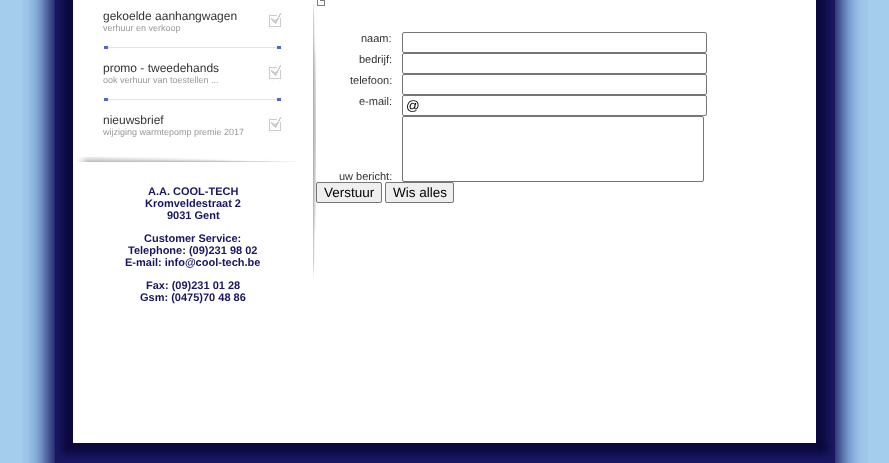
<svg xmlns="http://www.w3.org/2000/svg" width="889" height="463">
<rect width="100%" height="100%" fill="#a4cded"/>
<image x="22" y="0" width="846" height="463" href="media/1.png"/>
<image x="55" y="0" width="18" height="443" href="media/2.png"/>
<rect x="73" width="743" height="443" fill="#fff"/>
<text x="103" y="20" style="font-family:Liberation Sans;font-size:12px;fill:#333">gekoelde aanhangwagen</text>
<text x="103" y="31" style="font-family:Liberation Sans;font-size:9px;fill:#999">verhuur en verkoop</text>
<image x="267" y="9" width="16" height="24" href="media/3.png"/>
<image x="103" y="45" width="180" height="5" href="media/4.png"/>
<text x="103" y="72" style="font-family:Liberation Sans;font-size:12px;fill:#333">promo - tweedehands</text>
<text x="103" y="83" style="font-family:Liberation Sans;font-size:9px;fill:#999">ook verhuur van toestellen ...</text>
<image x="267" y="61" width="16" height="24" href="media/3.png"/>
<image x="103" y="97" width="180" height="5" href="media/4.png"/>
<text x="103" y="124" style="font-family:Liberation Sans;font-size:12px;fill:#333">nieuwsbrief</text>
<text x="103" y="135" style="font-family:Liberation Sans;font-size:9px;fill:#999">wijziging warmtepomp premie 2017</text>
<image x="267" y="113" width="16" height="24" href="media/3.png"/>
<image x="77" y="157" width="220" height="5" href="media/5.png"/>
<text x="148" y="195" style="font-family:Liberation Sans;font-size:11px;font-weight:bold;fill:#181660">A.A. COOL-TECH</text>
<text x="145" y="207" style="font-family:Liberation Sans;font-size:11px;font-weight:bold;fill:#181660">Kromveldestraat 2</text>
<text x="167" y="219" style="font-family:Liberation Sans;font-size:11px;font-weight:bold;fill:#181660">9031 Gent</text>
<text x="144" y="242" style="font-family:Liberation Sans;font-size:11px;font-weight:bold;fill:#181660">Customer Service:</text>
<text x="128" y="254" style="font-family:Liberation Sans;font-size:11px;font-weight:bold;fill:#181660">Telephone: (09)231 98 02</text>
<text x="125" y="266" style="font-family:Liberation Sans;font-size:11px;font-weight:bold;fill:#181660">E-mail: info@cool-tech.be</text>
<text x="146" y="289" style="font-family:Liberation Sans;font-size:11px;font-weight:bold;fill:#181660">Fax: (09)231 01 28</text>
<text x="140" y="301" style="font-family:Liberation Sans;font-size:11px;font-weight:bold;fill:#181660">Gsm: (0475)70 48 86</text>
<image x="313" y="0" width="3" height="279" href="media/6.png"/>
<image x="316" y="0" width="15" height="6" href="media/7.png"/>
<text x="361" y="42" style="font-family:Liberation Sans;font-size:11px;fill:#333">naam:</text>
<rect x="402.5" y="32.5" width="304" height="20" rx="1.5" fill="none" stroke="#767676"/>
<text x="359" y="63" style="font-family:Liberation Sans;font-size:11px;fill:#333">bedrijf:</text>
<rect x="402.5" y="53.5" width="304" height="20" rx="1.5" fill="none" stroke="#767676"/>
<text x="350" y="84" style="font-family:Liberation Sans;font-size:11px;fill:#333">telefoon:</text>
<rect x="402.5" y="74.5" width="304" height="20" rx="1.5" fill="none" stroke="#767676"/>
<text x="359" y="105" style="font-family:Liberation Sans;font-size:11px;fill:#333">e-mail:</text>
<rect x="402.5" y="95.5" width="304" height="20" rx="1.5" fill="none" stroke="#767676"/>
<text x="406" y="110" style="font-family:Liberation Sans;font-size:13.5px;fill:#000">@</text>
<text x="339" y="180" style="font-family:Liberation Sans;font-size:11px;fill:#333">uw bericht:</text>
<rect x="402.5" y="116.5" width="301" height="65" rx="1.5" fill="none" stroke="#767676"/>
<rect x="316.5" y="182.5" width="65" height="20" rx="1.5" fill="#efefef" stroke="#767676"/>
<text x="324" y="197" style="font-family:Liberation Sans;font-size:13.5px;fill:#000">Verstuur</text>
<rect x="385.5" y="182.5" width="68" height="20" rx="1.5" fill="#efefef" stroke="#767676"/>
<text x="393" y="197" style="font-family:Liberation Sans;font-size:13.5px;fill:#000">Wis alles</text>
<image x="816" y="0" width="19" height="443" href="media/8.png"/>
<image x="55" y="443" width="18" height="20" href="media/9.png"/>
<image x="73" y="443" width="743" height="16" href="media/10.png"/>
<image x="816" y="443" width="19" height="20" href="media/11.png"/>
</svg>
